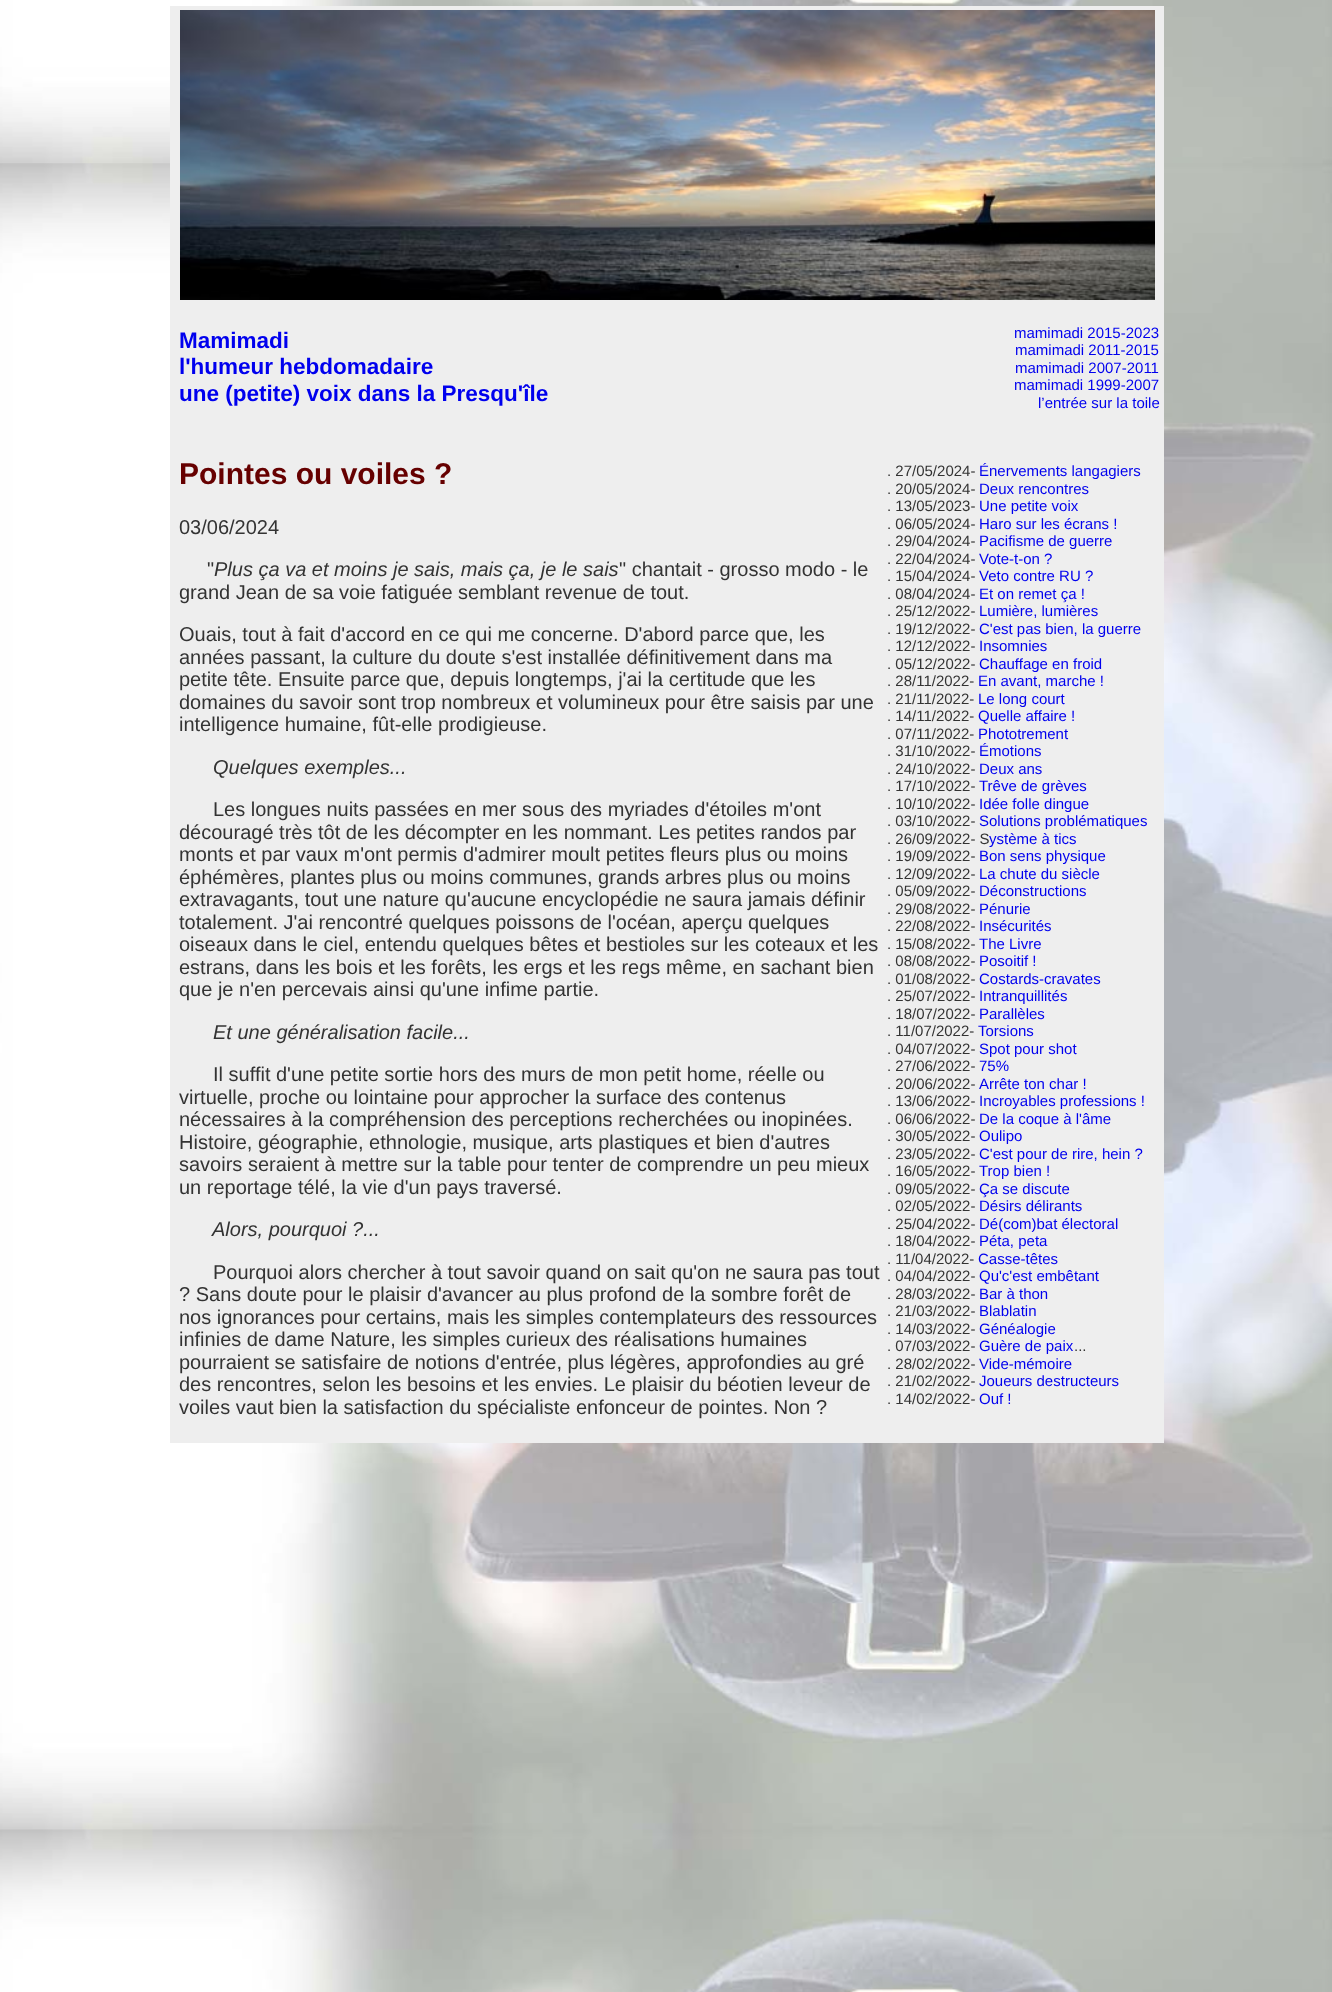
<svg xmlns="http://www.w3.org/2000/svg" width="1332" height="1992">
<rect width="100%" height="100%" fill="#fff"/>
<image x="0" y="0" width="1332" height="1992" href="media/1.png"/>
<rect x="170" y="6" width="994" height="1437" fill="#eee"/>
<image x="180" y="10" width="975" height="290" href="media/2.png"/>
<text x="179" y="348" style="font-family:Liberation Sans;font-size:22.5px;font-weight:bold;fill:#00e">Mamimadi</text>
<text x="179" y="374" style="font-family:Liberation Sans;font-size:22.5px;font-weight:bold;fill:#00e">l'humeur hebdomadaire</text>
<text x="179" y="401" style="font-family:Liberation Sans;font-size:22.5px;font-weight:bold;fill:#00e">une (petite) voix dans la Presqu'île</text>
<text x="1014" y="338" style="font-family:Liberation Sans;font-size:15px;fill:#00e">mamimadi 2015-2023</text>
<text x="1015" y="355" style="font-family:Liberation Sans;font-size:15px;fill:#00e">mamimadi 2011-2015</text>
<text x="1015" y="373" style="font-family:Liberation Sans;font-size:15px;fill:#00e">mamimadi 2007-2011</text>
<text x="1014" y="390" style="font-family:Liberation Sans;font-size:15px;fill:#00e">mamimadi 1999-2007</text>
<text x="1038" y="408" style="font-family:Liberation Sans;font-size:15px;fill:#00e">l’entrée sur la toile</text>
<text x="179" y="484" style="font-family:Liberation Sans;font-size:30px;font-weight:bold;fill:#600">Pointes ou voiles ?</text>
<text x="179" y="534" style="font-family:Liberation Sans;font-size:20px;fill:#333">03/06/2024</text>
<text x="207" y="576" style="font-family:Liberation Sans;font-size:20px;fill:#333">"</text>
<text x="214" y="576" style="font-family:Liberation Sans;font-size:20px;font-style:italic;fill:#333">Plus ça va et moins je sais, mais ça, je le sais</text>
<text x="619" y="576" style="font-family:Liberation Sans;font-size:20px;fill:#333">" chantait - grosso modo - le</text>
<text x="179" y="599" style="font-family:Liberation Sans;font-size:20px;fill:#333">grand Jean de sa voie fatiguée semblant revenue de tout.</text>
<text x="179" y="641" style="font-family:Liberation Sans;font-size:20px;fill:#333">Ouais, tout à fait d'accord en ce qui me concerne. D'abord parce que, les</text>
<text x="179" y="664" style="font-family:Liberation Sans;font-size:20px;fill:#333">années passant, la culture du doute s'est installée définitivement dans ma</text>
<text x="179" y="686" style="font-family:Liberation Sans;font-size:20px;fill:#333">petite tête. Ensuite parce que, depuis longtemps, j'ai la certitude que les</text>
<text x="179" y="709" style="font-family:Liberation Sans;font-size:20px;fill:#333">domaines du savoir sont trop nombreux et volumineux pour être saisis par une</text>
<text x="179" y="731" style="font-family:Liberation Sans;font-size:20px;fill:#333">intelligence humaine, fût-elle prodigieuse.</text>
<text x="213" y="774" style="font-family:Liberation Sans;font-size:20px;font-style:italic;fill:#333">Quelques exemples...</text>
<text x="213" y="816" style="font-family:Liberation Sans;font-size:20px;fill:#333">Les longues nuits passées en mer sous des myriades d'étoiles m'ont</text>
<text x="179" y="839" style="font-family:Liberation Sans;font-size:20px;fill:#333">découragé très tôt de les décompter en les nommant. Les petites randos par</text>
<text x="179" y="861" style="font-family:Liberation Sans;font-size:20px;fill:#333">monts et par vaux m'ont permis d'admirer moult petites fleurs plus ou moins</text>
<text x="179" y="884" style="font-family:Liberation Sans;font-size:20px;fill:#333">éphémères, plantes plus ou moins communes, grands arbres plus ou moins</text>
<text x="179" y="906" style="font-family:Liberation Sans;font-size:20px;fill:#333">extravagants, tout une nature qu'aucune encyclopédie ne saura jamais définir</text>
<text x="179" y="929" style="font-family:Liberation Sans;font-size:20px;fill:#333">totalement. J'ai rencontré quelques poissons de l'océan, aperçu quelques</text>
<text x="179" y="951" style="font-family:Liberation Sans;font-size:20px;fill:#333">oiseaux dans le ciel, entendu quelques bêtes et bestioles sur les coteaux et les</text>
<text x="179" y="974" style="font-family:Liberation Sans;font-size:20px;fill:#333">estrans, dans les bois et les forêts, les ergs et les regs même, en sachant bien</text>
<text x="179" y="996" style="font-family:Liberation Sans;font-size:20px;fill:#333">que je n'en percevais ainsi qu'une infime partie.</text>
<text x="213" y="1039" style="font-family:Liberation Sans;font-size:20px;font-style:italic;fill:#333">Et une généralisation facile...</text>
<text x="213" y="1081" style="font-family:Liberation Sans;font-size:20px;fill:#333">Il suffit d'une petite sortie hors des murs de mon petit home, réelle ou</text>
<text x="179" y="1104" style="font-family:Liberation Sans;font-size:20px;fill:#333">virtuelle, proche ou lointaine pour approcher la surface des contenus</text>
<text x="179" y="1126" style="font-family:Liberation Sans;font-size:20px;fill:#333">nécessaires à la compréhension des perceptions recherchées ou inopinées.</text>
<text x="179" y="1149" style="font-family:Liberation Sans;font-size:20px;fill:#333">Histoire, géographie, ethnologie, musique, arts plastiques et bien d'autres</text>
<text x="179" y="1171" style="font-family:Liberation Sans;font-size:20px;fill:#333">savoirs seraient à mettre sur la table pour tenter de comprendre un peu mieux</text>
<text x="179" y="1194" style="font-family:Liberation Sans;font-size:20px;fill:#333">un reportage télé, la vie d'un pays traversé.</text>
<text x="212" y="1236" style="font-family:Liberation Sans;font-size:20px;font-style:italic;fill:#333">Alors, pourquoi ?...</text>
<text x="213" y="1279" style="font-family:Liberation Sans;font-size:20px;fill:#333">Pourquoi alors chercher à tout savoir quand on sait qu'on ne saura pas tout</text>
<text x="179" y="1301" style="font-family:Liberation Sans;font-size:20px;fill:#333">? Sans doute pour le plaisir d'avancer au plus profond de la sombre forêt de</text>
<text x="179" y="1324" style="font-family:Liberation Sans;font-size:20px;fill:#333">nos ignorances pour certains, mais les simples contemplateurs des ressources</text>
<text x="179" y="1346" style="font-family:Liberation Sans;font-size:20px;fill:#333">infinies de dame Nature, les simples curieux des réalisations humaines</text>
<text x="179" y="1369" style="font-family:Liberation Sans;font-size:20px;fill:#333">pourraient se satisfaire de notions d'entrée, plus légères, approfondies au gré</text>
<text x="179" y="1391" style="font-family:Liberation Sans;font-size:20px;fill:#333">des rencontres, selon les besoins et les envies. Le plaisir du béotien leveur de</text>
<text x="179" y="1414" style="font-family:Liberation Sans;font-size:20px;fill:#333">voiles vaut bien la satisfaction du spécialiste enfonceur de pointes. Non ?</text>
<text x="887" y="476" style="font-family:Liberation Sans;font-size:15px;fill:#333">. 27/05/2024-</text>
<text x="979" y="476" style="font-family:Liberation Sans;font-size:15px;fill:#00e">Énervements langagiers</text>
<text x="887" y="494" style="font-family:Liberation Sans;font-size:15px;fill:#333">. 20/05/2024-</text>
<text x="979" y="494" style="font-family:Liberation Sans;font-size:15px;fill:#00e">Deux rencontres</text>
<text x="887" y="511" style="font-family:Liberation Sans;font-size:15px;fill:#333">. 13/05/2023-</text>
<text x="979" y="511" style="font-family:Liberation Sans;font-size:15px;fill:#00e">Une petite voix</text>
<text x="887" y="529" style="font-family:Liberation Sans;font-size:15px;fill:#333">. 06/05/2024-</text>
<text x="979" y="529" style="font-family:Liberation Sans;font-size:15px;fill:#00e">Haro sur les écrans !</text>
<text x="887" y="546" style="font-family:Liberation Sans;font-size:15px;fill:#333">. 29/04/2024-</text>
<text x="979" y="546" style="font-family:Liberation Sans;font-size:15px;fill:#00e">Pacifisme de guerre</text>
<text x="887" y="564" style="font-family:Liberation Sans;font-size:15px;fill:#333">. 22/04/2024-</text>
<text x="979" y="564" style="font-family:Liberation Sans;font-size:15px;fill:#00e">Vote-t-on ?</text>
<text x="887" y="581" style="font-family:Liberation Sans;font-size:15px;fill:#333">. 15/04/2024-</text>
<text x="979" y="581" style="font-family:Liberation Sans;font-size:15px;fill:#00e">Veto contre RU ?</text>
<text x="887" y="599" style="font-family:Liberation Sans;font-size:15px;fill:#333">. 08/04/2024-</text>
<text x="979" y="599" style="font-family:Liberation Sans;font-size:15px;fill:#00e">Et on remet ça !</text>
<text x="887" y="616" style="font-family:Liberation Sans;font-size:15px;fill:#333">. 25/12/2022-</text>
<text x="979" y="616" style="font-family:Liberation Sans;font-size:15px;fill:#00e">Lumière, lumières</text>
<text x="887" y="634" style="font-family:Liberation Sans;font-size:15px;fill:#333">. 19/12/2022-</text>
<text x="979" y="634" style="font-family:Liberation Sans;font-size:15px;fill:#00e">C'est pas bien, la guerre</text>
<text x="887" y="651" style="font-family:Liberation Sans;font-size:15px;fill:#333">. 12/12/2022-</text>
<text x="979" y="651" style="font-family:Liberation Sans;font-size:15px;fill:#00e">Insomnies</text>
<text x="887" y="669" style="font-family:Liberation Sans;font-size:15px;fill:#333">. 05/12/2022-</text>
<text x="979" y="669" style="font-family:Liberation Sans;font-size:15px;fill:#00e">Chauffage en froid</text>
<text x="887" y="686" style="font-family:Liberation Sans;font-size:15px;fill:#333">. 28/11/2022-</text>
<text x="978" y="686" style="font-family:Liberation Sans;font-size:15px;fill:#00e">En avant, marche !</text>
<text x="887" y="704" style="font-family:Liberation Sans;font-size:15px;fill:#333">. 21/11/2022-</text>
<text x="978" y="704" style="font-family:Liberation Sans;font-size:15px;fill:#00e">Le long court</text>
<text x="887" y="721" style="font-family:Liberation Sans;font-size:15px;fill:#333">. 14/11/2022-</text>
<text x="978" y="721" style="font-family:Liberation Sans;font-size:15px;fill:#00e">Quelle affaire !</text>
<text x="887" y="739" style="font-family:Liberation Sans;font-size:15px;fill:#333">. 07/11/2022-</text>
<text x="978" y="739" style="font-family:Liberation Sans;font-size:15px;fill:#00e">Phototrement</text>
<text x="887" y="756" style="font-family:Liberation Sans;font-size:15px;fill:#333">. 31/10/2022-</text>
<text x="979" y="756" style="font-family:Liberation Sans;font-size:15px;fill:#00e">Émotions</text>
<text x="887" y="774" style="font-family:Liberation Sans;font-size:15px;fill:#333">. 24/10/2022-</text>
<text x="979" y="774" style="font-family:Liberation Sans;font-size:15px;fill:#00e">Deux ans</text>
<text x="887" y="791" style="font-family:Liberation Sans;font-size:15px;fill:#333">. 17/10/2022-</text>
<text x="979" y="791" style="font-family:Liberation Sans;font-size:15px;fill:#00e">Trêve de grèves</text>
<text x="887" y="809" style="font-family:Liberation Sans;font-size:15px;fill:#333">. 10/10/2022-</text>
<text x="979" y="809" style="font-family:Liberation Sans;font-size:15px;fill:#00e">Idée folle dingue</text>
<text x="887" y="826" style="font-family:Liberation Sans;font-size:15px;fill:#333">. 03/10/2022-</text>
<text x="979" y="826" style="font-family:Liberation Sans;font-size:15px;fill:#00e">Solutions problématiques</text>
<text x="887" y="844" style="font-family:Liberation Sans;font-size:15px;fill:#333">. 26/09/2022- S</text>
<text x="989" y="844" style="font-family:Liberation Sans;font-size:15px;fill:#00e">ystème à tics</text>
<text x="887" y="861" style="font-family:Liberation Sans;font-size:15px;fill:#333">. 19/09/2022-</text>
<text x="979" y="861" style="font-family:Liberation Sans;font-size:15px;fill:#00e">Bon sens physique</text>
<text x="887" y="879" style="font-family:Liberation Sans;font-size:15px;fill:#333">. 12/09/2022-</text>
<text x="979" y="879" style="font-family:Liberation Sans;font-size:15px;fill:#00e">La chute du siècle</text>
<text x="887" y="896" style="font-family:Liberation Sans;font-size:15px;fill:#333">. 05/09/2022-</text>
<text x="979" y="896" style="font-family:Liberation Sans;font-size:15px;fill:#00e">Déconstructions</text>
<text x="887" y="914" style="font-family:Liberation Sans;font-size:15px;fill:#333">. 29/08/2022-</text>
<text x="979" y="914" style="font-family:Liberation Sans;font-size:15px;fill:#00e">Pénurie</text>
<text x="887" y="931" style="font-family:Liberation Sans;font-size:15px;fill:#333">. 22/08/2022-</text>
<text x="979" y="931" style="font-family:Liberation Sans;font-size:15px;fill:#00e">Insécurités</text>
<text x="887" y="949" style="font-family:Liberation Sans;font-size:15px;fill:#333">. 15/08/2022-</text>
<text x="979" y="949" style="font-family:Liberation Sans;font-size:15px;fill:#00e">The Livre</text>
<text x="887" y="966" style="font-family:Liberation Sans;font-size:15px;fill:#333">. 08/08/2022-</text>
<text x="979" y="966" style="font-family:Liberation Sans;font-size:15px;fill:#00e">Posoitif !</text>
<text x="887" y="984" style="font-family:Liberation Sans;font-size:15px;fill:#333">. 01/08/2022-</text>
<text x="979" y="984" style="font-family:Liberation Sans;font-size:15px;fill:#00e">Costards-cravates</text>
<text x="887" y="1001" style="font-family:Liberation Sans;font-size:15px;fill:#333">. 25/07/2022-</text>
<text x="979" y="1001" style="font-family:Liberation Sans;font-size:15px;fill:#00e">Intranquillités</text>
<text x="887" y="1019" style="font-family:Liberation Sans;font-size:15px;fill:#333">. 18/07/2022-</text>
<text x="979" y="1019" style="font-family:Liberation Sans;font-size:15px;fill:#00e">Parallèles</text>
<text x="887" y="1036" style="font-family:Liberation Sans;font-size:15px;fill:#333">. 11/07/2022-</text>
<text x="978" y="1036" style="font-family:Liberation Sans;font-size:15px;fill:#00e">Torsions</text>
<text x="887" y="1054" style="font-family:Liberation Sans;font-size:15px;fill:#333">. 04/07/2022-</text>
<text x="979" y="1054" style="font-family:Liberation Sans;font-size:15px;fill:#00e">Spot pour shot</text>
<text x="887" y="1071" style="font-family:Liberation Sans;font-size:15px;fill:#333">. 27/06/2022-</text>
<text x="979" y="1071" style="font-family:Liberation Sans;font-size:15px;fill:#00e">75%</text>
<text x="887" y="1089" style="font-family:Liberation Sans;font-size:15px;fill:#333">. 20/06/2022-</text>
<text x="979" y="1089" style="font-family:Liberation Sans;font-size:15px;fill:#00e">Arrête ton char !</text>
<text x="887" y="1106" style="font-family:Liberation Sans;font-size:15px;fill:#333">. 13/06/2022-</text>
<text x="979" y="1106" style="font-family:Liberation Sans;font-size:15px;fill:#00e">Incroyables professions !</text>
<text x="887" y="1124" style="font-family:Liberation Sans;font-size:15px;fill:#333">. 06/06/2022-</text>
<text x="979" y="1124" style="font-family:Liberation Sans;font-size:15px;fill:#00e">De la coque à l'âme</text>
<text x="887" y="1141" style="font-family:Liberation Sans;font-size:15px;fill:#333">. 30/05/2022-</text>
<text x="979" y="1141" style="font-family:Liberation Sans;font-size:15px;fill:#00e">Oulipo</text>
<text x="887" y="1159" style="font-family:Liberation Sans;font-size:15px;fill:#333">. 23/05/2022-</text>
<text x="979" y="1159" style="font-family:Liberation Sans;font-size:15px;fill:#00e">C'est pour de rire, hein ?</text>
<text x="887" y="1176" style="font-family:Liberation Sans;font-size:15px;fill:#333">. 16/05/2022-</text>
<text x="979" y="1176" style="font-family:Liberation Sans;font-size:15px;fill:#00e">Trop bien !</text>
<text x="887" y="1194" style="font-family:Liberation Sans;font-size:15px;fill:#333">. 09/05/2022-</text>
<text x="979" y="1194" style="font-family:Liberation Sans;font-size:15px;fill:#00e">Ça se discute</text>
<text x="887" y="1211" style="font-family:Liberation Sans;font-size:15px;fill:#333">. 02/05/2022-</text>
<text x="979" y="1211" style="font-family:Liberation Sans;font-size:15px;fill:#00e">Désirs délirants</text>
<text x="887" y="1229" style="font-family:Liberation Sans;font-size:15px;fill:#333">. 25/04/2022-</text>
<text x="979" y="1229" style="font-family:Liberation Sans;font-size:15px;fill:#00e">Dé(com)bat électoral</text>
<text x="887" y="1246" style="font-family:Liberation Sans;font-size:15px;fill:#333">. 18/04/2022-</text>
<text x="979" y="1246" style="font-family:Liberation Sans;font-size:15px;fill:#00e">Péta, peta</text>
<text x="887" y="1264" style="font-family:Liberation Sans;font-size:15px;fill:#333">. 11/04/2022-</text>
<text x="978" y="1264" style="font-family:Liberation Sans;font-size:15px;fill:#00e">Casse-têtes</text>
<text x="887" y="1281" style="font-family:Liberation Sans;font-size:15px;fill:#333">. 04/04/2022-</text>
<text x="979" y="1281" style="font-family:Liberation Sans;font-size:15px;fill:#00e">Qu'c'est embêtant</text>
<text x="887" y="1299" style="font-family:Liberation Sans;font-size:15px;fill:#333">. 28/03/2022-</text>
<text x="979" y="1299" style="font-family:Liberation Sans;font-size:15px;fill:#00e">Bar à thon</text>
<text x="887" y="1316" style="font-family:Liberation Sans;font-size:15px;fill:#333">. 21/03/2022-</text>
<text x="979" y="1316" style="font-family:Liberation Sans;font-size:15px;fill:#00e">Blablatin</text>
<text x="887" y="1334" style="font-family:Liberation Sans;font-size:15px;fill:#333">. 14/03/2022-</text>
<text x="979" y="1334" style="font-family:Liberation Sans;font-size:15px;fill:#00e">Généalogie</text>
<text x="887" y="1351" style="font-family:Liberation Sans;font-size:15px;fill:#333">. 07/03/2022-</text>
<text x="979" y="1351" style="font-family:Liberation Sans;font-size:15px;fill:#00e">Guère de paix</text>
<text x="1074" y="1351" style="font-family:Liberation Sans;font-size:15px;fill:#333">...</text>
<text x="887" y="1369" style="font-family:Liberation Sans;font-size:15px;fill:#333">. 28/02/2022-</text>
<text x="979" y="1369" style="font-family:Liberation Sans;font-size:15px;fill:#00e">Vide-mémoire</text>
<text x="887" y="1386" style="font-family:Liberation Sans;font-size:15px;fill:#333">. 21/02/2022-</text>
<text x="979" y="1386" style="font-family:Liberation Sans;font-size:15px;fill:#00e">Joueurs destructeurs</text>
<text x="887" y="1404" style="font-family:Liberation Sans;font-size:15px;fill:#333">. 14/02/2022-</text>
<text x="979" y="1404" style="font-family:Liberation Sans;font-size:15px;fill:#00e">Ouf !</text>
</svg>
